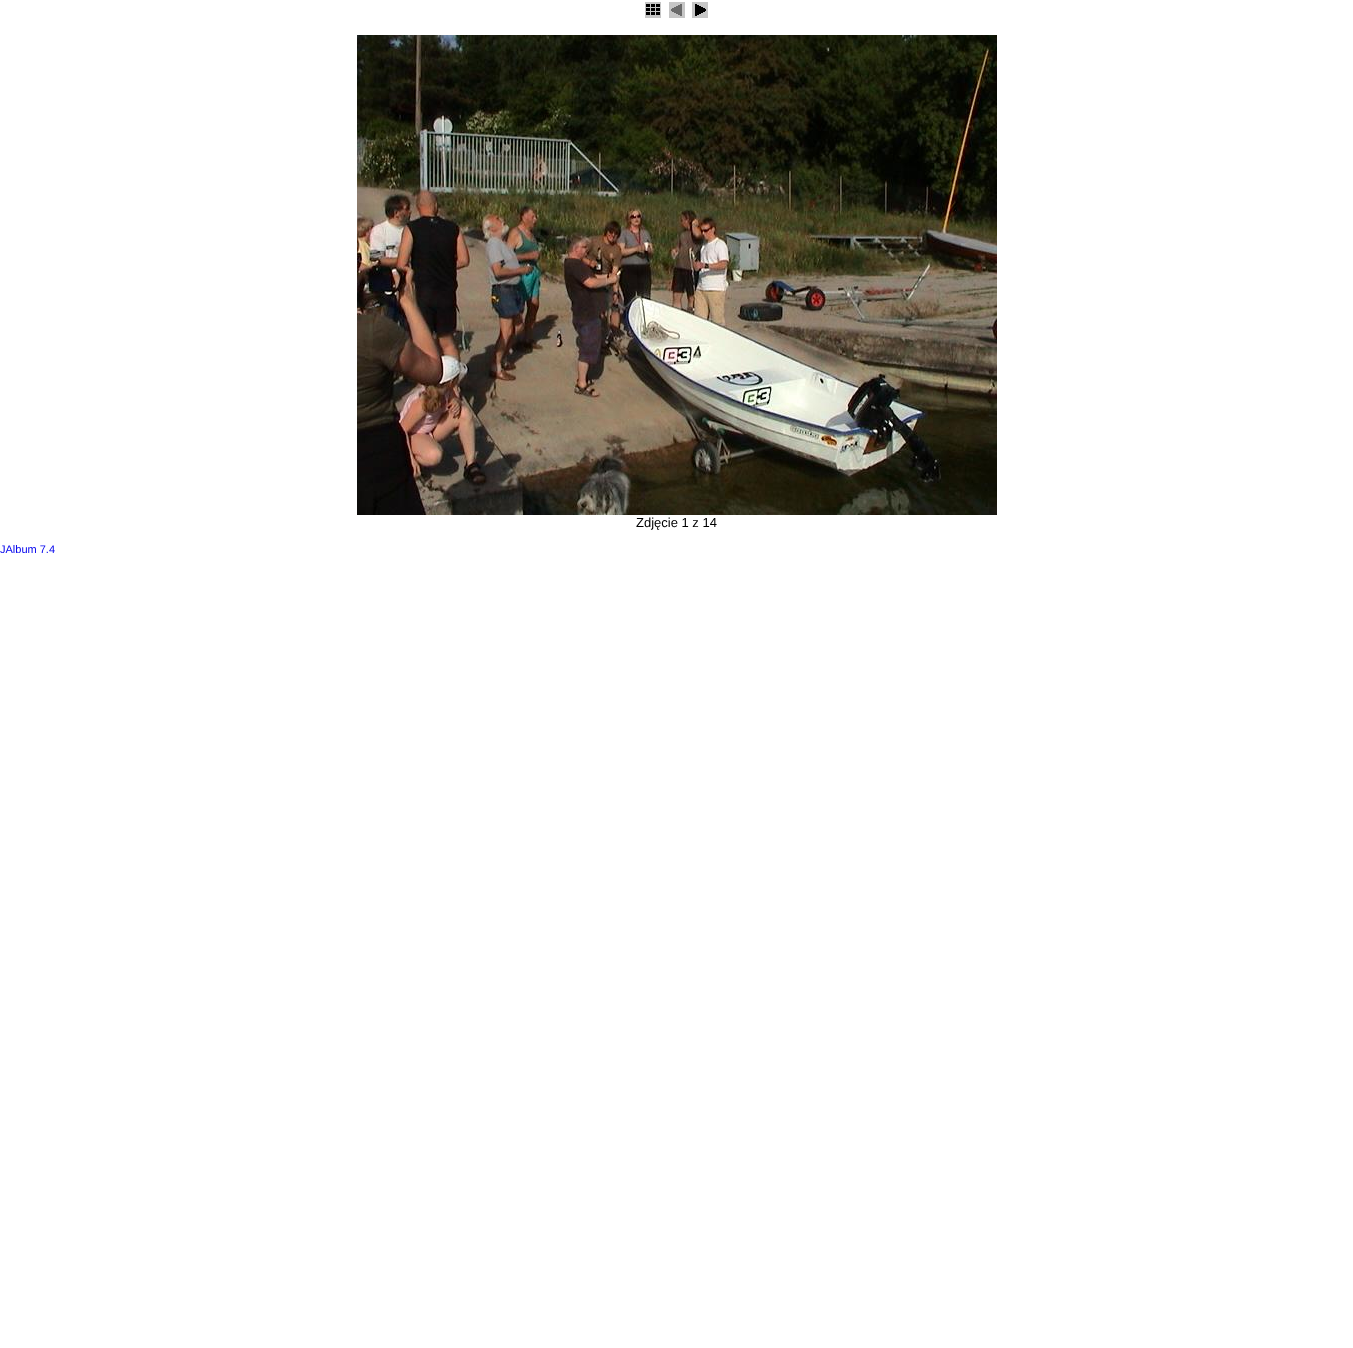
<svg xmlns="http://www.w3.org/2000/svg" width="1353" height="1348">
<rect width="100%" height="100%" fill="#fff"/>
<image x="645" y="2" width="16" height="16" href="media/1.png"/>
<image x="669" y="2" width="16" height="16" href="media/2.png"/>
<image x="692" y="2" width="16" height="16" href="media/3.png"/>
<image x="357" y="35" width="640" height="480" href="media/4.png"/>
<text x="636" y="527" style="font-family:Liberation Sans;font-size:13px;fill:#000">Zdjęcie 1 z 14</text>
<text x="0" y="553" style="font-family:Liberation Sans;font-size:11px;fill:#00e">JAlbum 7.4</text>
</svg>
